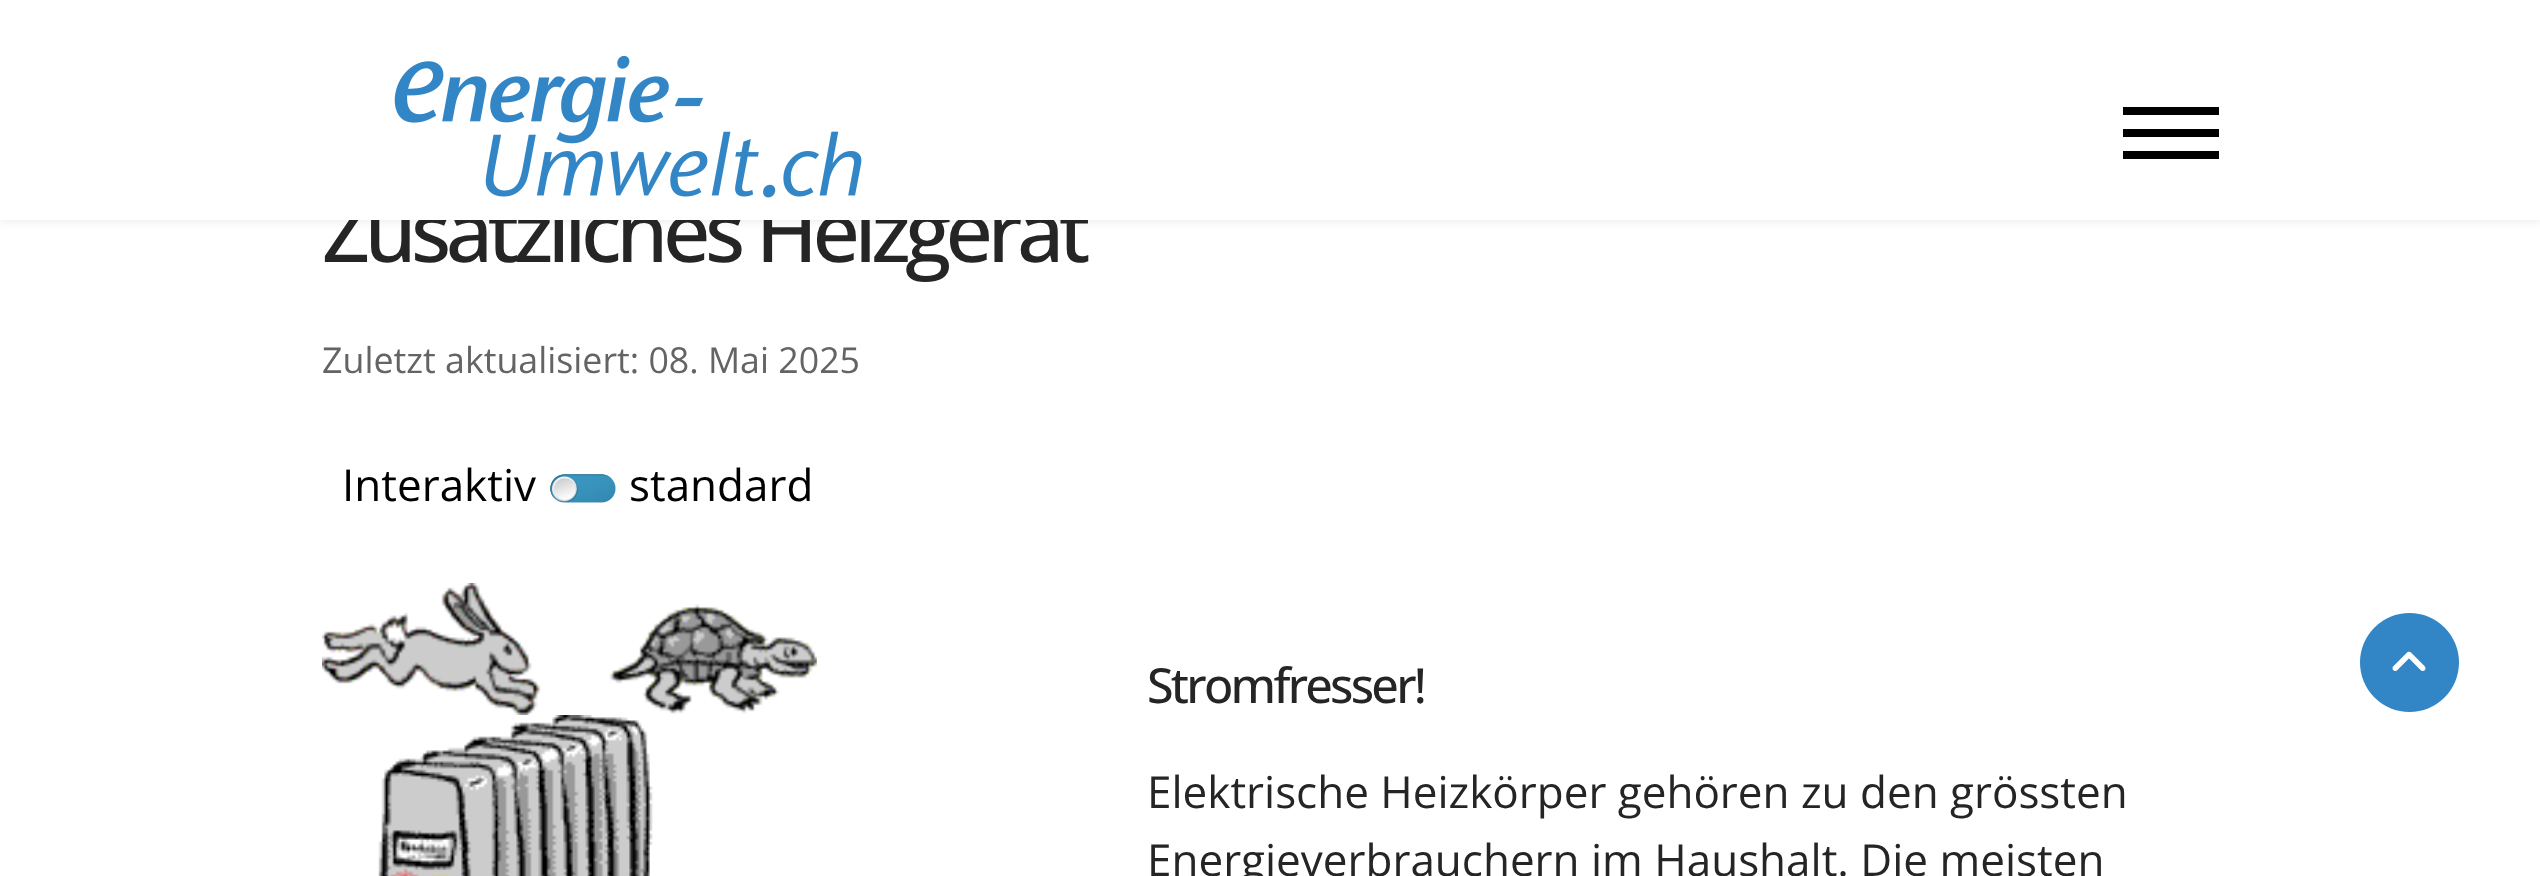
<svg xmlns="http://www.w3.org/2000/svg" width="2540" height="876">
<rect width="100%" height="100%" fill="#fff"/>
<rect width="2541" height="220" fill="#0000001a" filter="blur(5.5px)"/>
<text x="322" y="262" style="font-family:Open Sans;font-size:83.5px;font-weight:500;letter-spacing:-5.5px;fill:#252525">Zusätzliches Heizgerät</text>
<rect width="2540" height="220" fill="#fff"/>
<image x="394" y="55" width="468" height="143" href="media/1.png"/>
<rect x="2123" y="107" width="96" height="8" fill="#000"/>
<rect x="2123" y="129" width="96" height="8" fill="#000"/>
<rect x="2123" y="151" width="96" height="8" fill="#000"/>
<text x="322" y="373" style="font-family:Open Sans;font-size:35.75px;fill:#646464">Zuletzt aktualisiert: 08. Mai 2025</text>
<text x="342" y="501" style="font-family:Open Sans;font-size:44px;fill:#000">Interaktiv</text>
<image x="550" y="474" width="66" height="29" href="media/2.png"/>
<text x="629" y="501" style="font-family:Open Sans;font-size:44px;fill:#000">standard</text>
<image x="322" y="583" width="495" height="133" href="media/3.png"/>
<image x="378" y="715" width="275" height="161" href="media/4.png"/>
<text x="1147" y="703" style="font-family:Open Sans;font-size:48.5px;font-weight:500;letter-spacing:-2.75px;fill:#252525">Stromfresser!</text>
<text x="1147" y="808" style="font-family:Open Sans;font-size:44px;fill:#252525">Elektrische Heizkörper gehören zu den grössten</text>
<text x="1147" y="876" style="font-family:Open Sans;font-size:44px;fill:#252525">Energieverbrauchern im Haushalt. Die meisten</text>
<circle cx="2409.5" cy="662.5" r="49.5" fill="#3386c5"/>
<image x="2392" y="651" width="34" height="20" href="media/5.png"/>
</svg>
